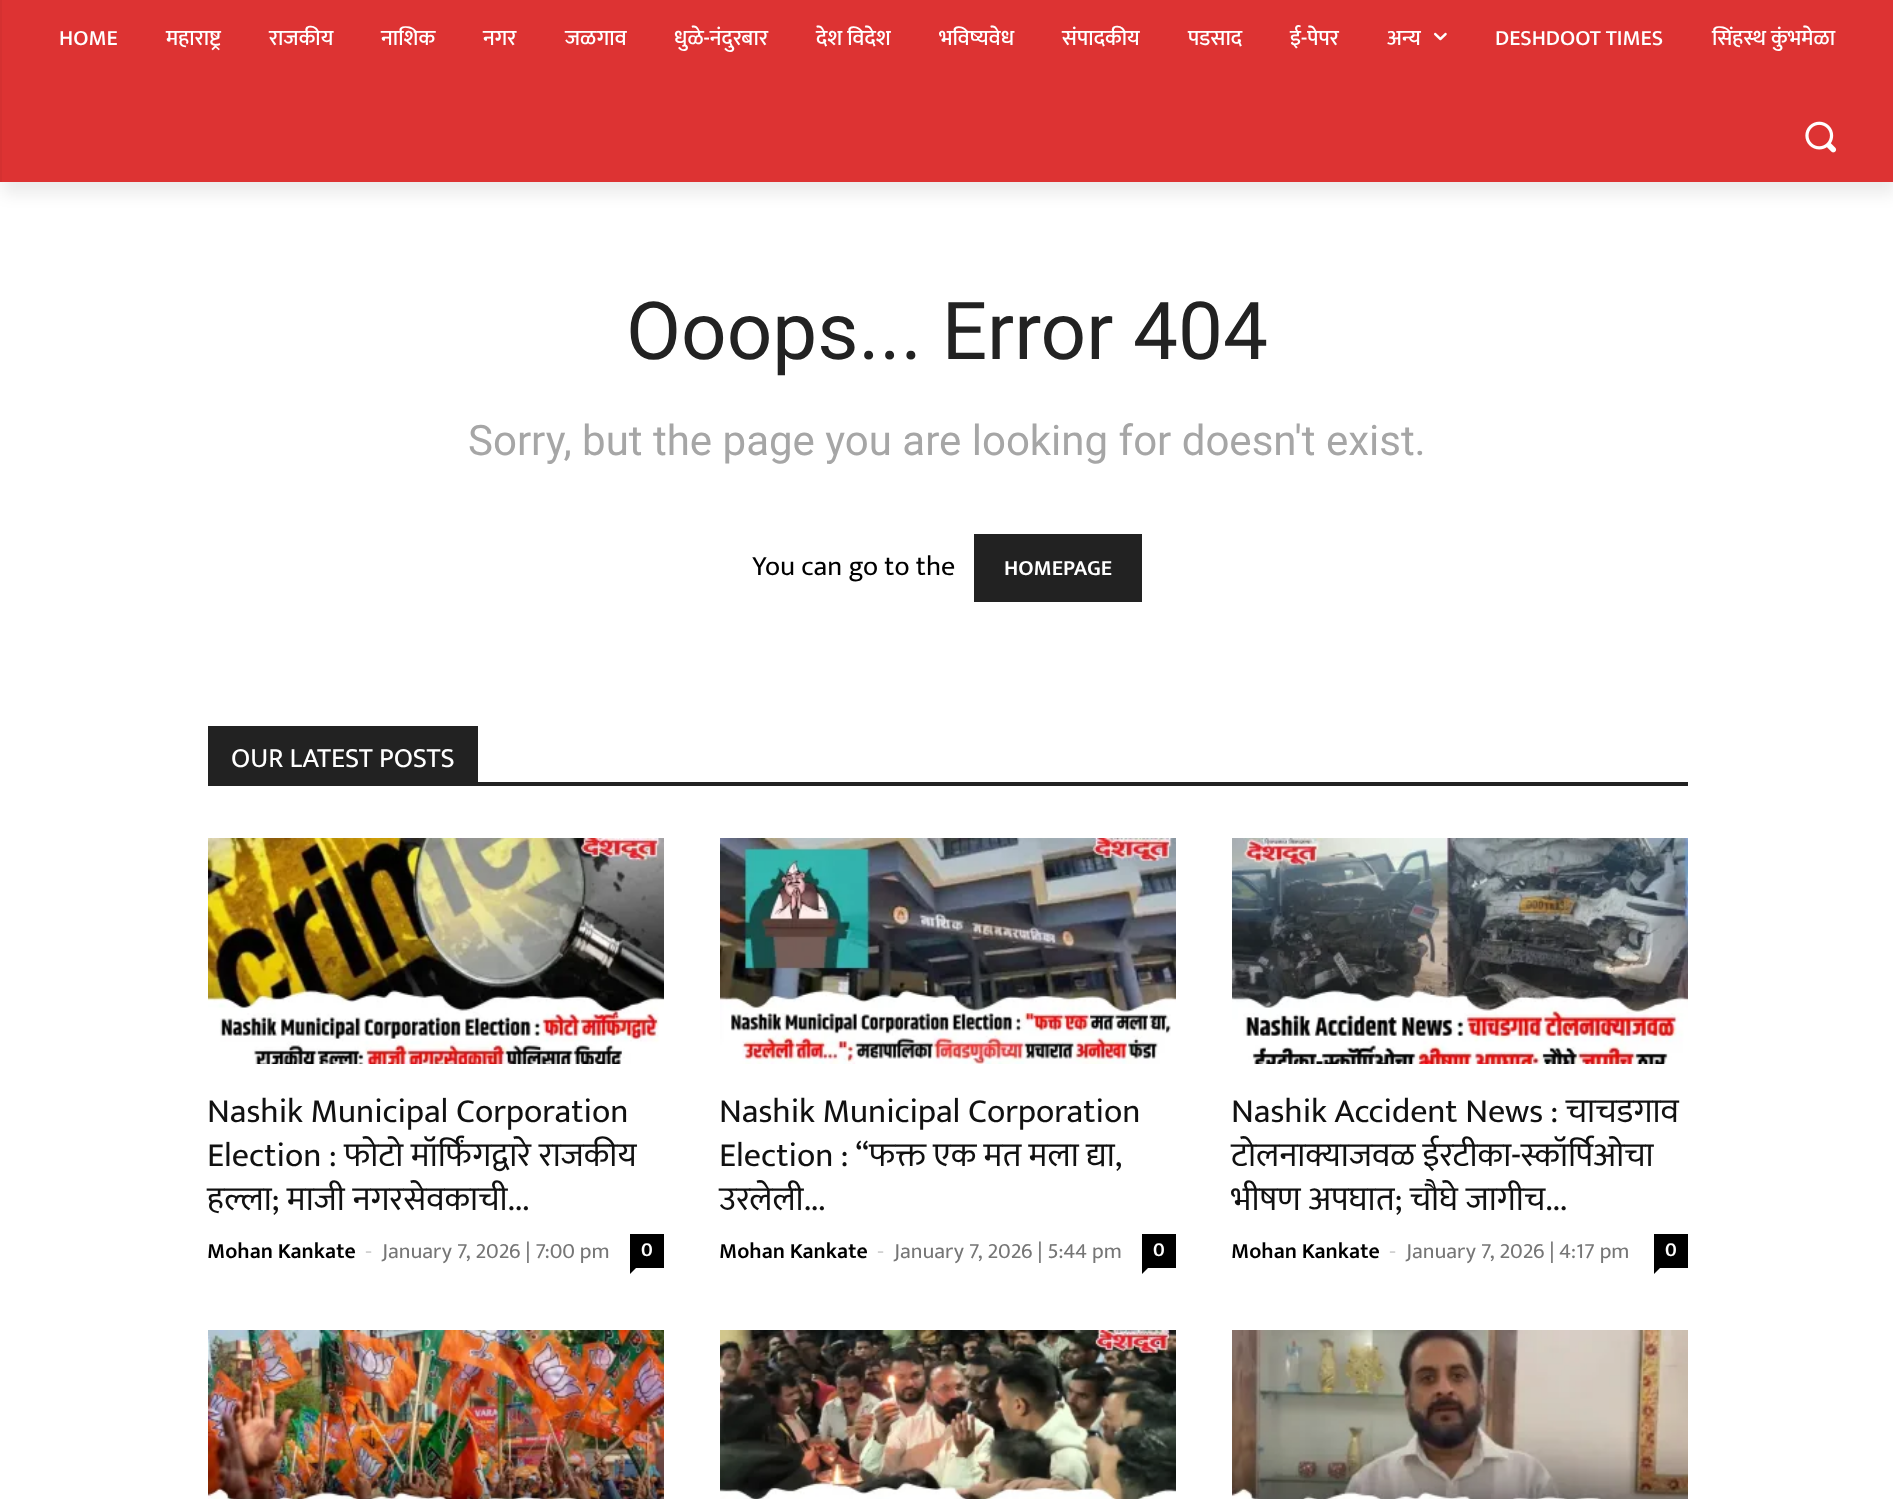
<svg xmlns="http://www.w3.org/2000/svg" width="1893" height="1499">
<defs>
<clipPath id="clip1"><path d="M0 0h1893v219h-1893zm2-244h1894v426h-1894z" clip-rule="evenodd"/></clipPath>
</defs>
<rect width="100%" height="100%" fill="#fff"/>
<rect width="1893" height="182" fill="#d33"/>
<g clip-path="url(#clip1)">
<rect x="2" y="-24" width="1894" height="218" fill="#00000014" filter="blur(8px)"/>
</g>
<text x="59" y="45" style="font-family:Mukta;font-size:22px;font-weight:500;fill:#fff">HOME</text>
<text x="166" y="45" style="font-family:Mukta;font-size:22px;font-weight:500;fill:#fff">महाराष्ट्र</text>
<text x="269" y="45" style="font-family:Mukta;font-size:22px;font-weight:500;fill:#fff">राजकीय</text>
<text x="381" y="45" style="font-family:Mukta;font-size:22px;font-weight:500;fill:#fff">नाशिक</text>
<text x="483" y="45" style="font-family:Mukta;font-size:22px;font-weight:500;fill:#fff">नगर</text>
<text x="565" y="45" style="font-family:Mukta;font-size:22px;font-weight:500;fill:#fff">जळगाव</text>
<text x="674" y="45" style="font-family:Mukta;font-size:22px;font-weight:500;fill:#fff">धुळे-नंदुरबार</text>
<text x="816" y="45" style="font-family:Mukta;font-size:22px;font-weight:500;fill:#fff">देश विदेश</text>
<text x="939" y="45" style="font-family:Mukta;font-size:22px;font-weight:500;fill:#fff">भविष्यवेध</text>
<text x="1062" y="45" style="font-family:Mukta;font-size:22px;font-weight:500;fill:#fff">संपादकीय</text>
<text x="1188" y="45" style="font-family:Mukta;font-size:22px;font-weight:500;fill:#fff">पडसाद</text>
<text x="1290" y="45" style="font-family:Mukta;font-size:22px;font-weight:500;fill:#fff">ई-पेपर</text>
<text x="1387" y="45" style="font-family:Mukta;font-size:22px;font-weight:500;fill:#fff">अन्य</text>
<image x="1434" y="32" width="13" height="9" href="media/1.png"/>
<text x="1495" y="45" style="font-family:Mukta;font-size:22px;font-weight:500;fill:#fff">DESHDOOT TIMES</text>
<text x="1712" y="45" style="font-family:Mukta;font-size:22px;font-weight:500;fill:#fff">सिंहस्थ कुंभमेळा</text>
<image x="1805" y="121" width="32" height="32" href="media/2.png"/>
<text x="626" y="359" style="font-family:Roboto;font-size:80px;fill:#222">Ooops... Error 404</text>
<text x="468" y="455" style="font-family:Roboto;font-size:42px;fill:#a6a6a6">Sorry, but the page you are looking for doesn't exist.</text>
<text x="752" y="575" style="font-family:Mukta;font-size:28px;fill:#000">You can go to the</text>
<rect x="974" y="534" width="168" height="68" fill="#222"/>
<text x="1004" y="575" style="font-family:Mukta;font-size:22px;font-weight:600;fill:#fff">HOMEPAGE</text>
<rect x="208" y="782" width="1480" height="4" fill="#222"/>
<rect x="208" y="726" width="270" height="56" fill="#222"/>
<text x="231" y="767" style="font-family:Mukta;font-size:28px;fill:#fff">OUR LATEST POSTS</text>
<image x="208" y="838" width="456" height="226" href="media/3.png"/>
<text x="207" y="1122" style="font-family:Mukta;font-size:34px;fill:#111">Nashik Municipal Corporation</text>
<text x="207" y="1166" style="font-family:Mukta;font-size:34px;fill:#111">Election : फोटो मॉर्फिंगद्वारे राजकीय</text>
<text x="207" y="1210" style="font-family:Mukta;font-size:34px;fill:#111">हल्ला; माजी नगरसेवकाची...</text>
<text x="207" y="1258" style="font-family:Mukta;font-size:22px;font-weight:600;fill:#000">Mohan Kankate</text>
<text x="365" y="1258" style="font-family:Open Sans;font-size:22px;fill:#ccc">-</text>
<text x="382" y="1258" style="font-family:Mukta;font-size:22px;fill:#767676">January 7, 2026 | 7:00 pm</text>
<rect x="630" y="1234" width="34" height="34" fill="#000"/>
<text x="641" y="1256" style="font-family:Mukta;font-size:20px;font-weight:600;fill:#fff">0</text>
<path d="M630 1268h6l-6 6z" fill="#000"/>
<image x="720" y="838" width="456" height="226" href="media/4.png"/>
<text x="719" y="1122" style="font-family:Mukta;font-size:34px;fill:#111">Nashik Municipal Corporation</text>
<text x="719" y="1166" word-spacing="-0.25" style="font-family:Mukta;font-size:34px;fill:#111">Election : “फक्त एक मत मला द्या,</text>
<text x="719" y="1210" style="font-family:Mukta;font-size:34px;fill:#111">उरलेली...</text>
<text x="719" y="1258" style="font-family:Mukta;font-size:22px;font-weight:600;fill:#000">Mohan Kankate</text>
<text x="877" y="1258" style="font-family:Open Sans;font-size:22px;fill:#ccc">-</text>
<text x="894" y="1258" style="font-family:Mukta;font-size:22px;fill:#767676">January 7, 2026 | 5:44 pm</text>
<rect x="1142" y="1234" width="34" height="34" fill="#000"/>
<text x="1153" y="1256" style="font-family:Mukta;font-size:20px;font-weight:600;fill:#fff">0</text>
<path d="M1142 1268h6l-6 6z" fill="#000"/>
<image x="1232" y="838" width="456" height="226" href="media/5.png"/>
<text x="1231" y="1122" style="font-family:Mukta;font-size:34px;fill:#111">Nashik Accident News : चाचडगाव</text>
<text x="1231" y="1166" style="font-family:Mukta;font-size:34px;fill:#111">टोलनाक्याजवळ ईरटीका-स्कॉर्पिओचा</text>
<text x="1231" y="1210" style="font-family:Mukta;font-size:34px;fill:#111">भीषण अपघात; चौघे जागीच...</text>
<text x="1231" y="1258" style="font-family:Mukta;font-size:22px;font-weight:600;fill:#000">Mohan Kankate</text>
<text x="1389" y="1258" style="font-family:Open Sans;font-size:22px;fill:#ccc">-</text>
<text x="1406" y="1258" style="font-family:Mukta;font-size:22px;fill:#767676">January 7, 2026 | 4:17 pm</text>
<rect x="1654" y="1234" width="34" height="34" fill="#000"/>
<text x="1665" y="1256" style="font-family:Mukta;font-size:20px;font-weight:600;fill:#fff">0</text>
<path d="M1654 1268h6l-6 6z" fill="#000"/>
<image x="208" y="1330" width="456" height="169" href="media/6.png"/>
<image x="720" y="1330" width="456" height="169" href="media/7.png"/>
<image x="1232" y="1330" width="456" height="169" href="media/8.png"/>
</svg>
